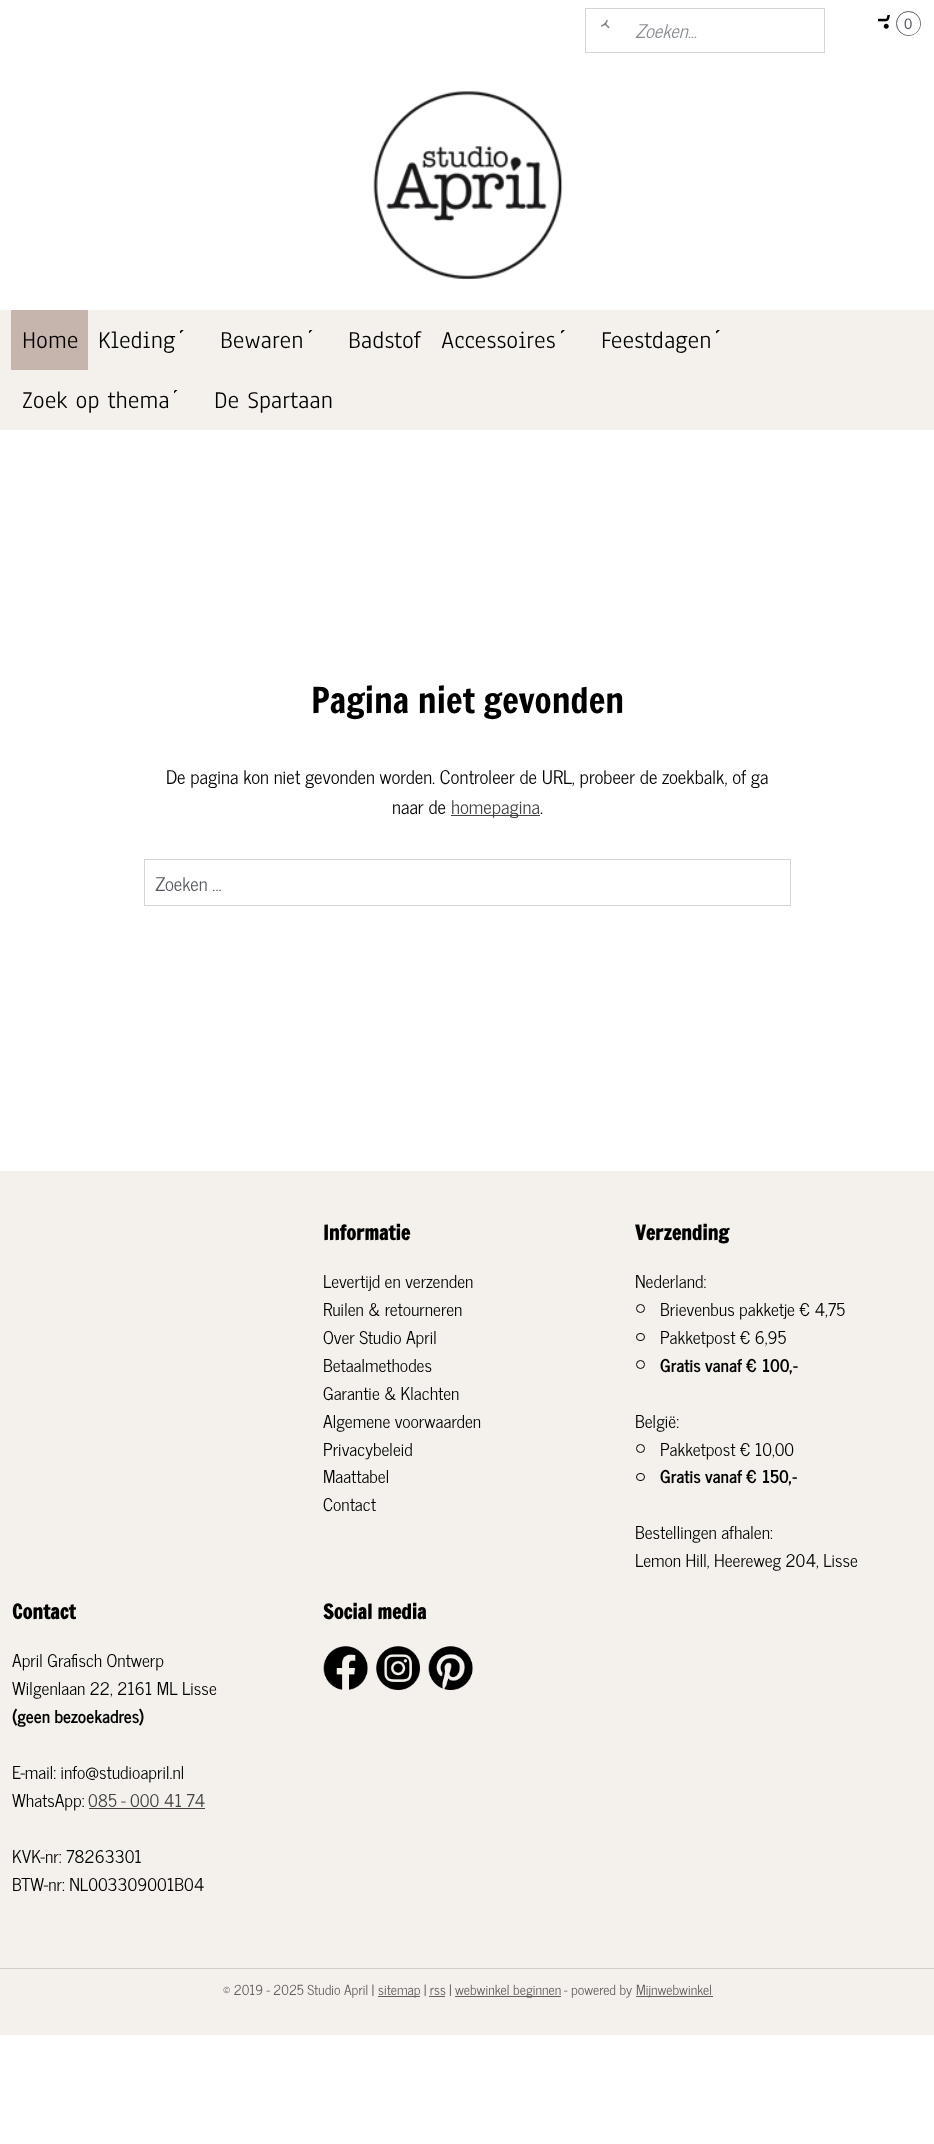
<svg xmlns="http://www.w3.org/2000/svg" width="934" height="2144">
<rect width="100%" height="100%" fill="#fff"/>
<rect x="585.5" y="8.5" width="239" height="44" fill="none" stroke="#d3d5d9"/>
<image x="601" y="20" width="9" height="9" href="media/1.png"/>
<text x="635" y="38" style="font-family:News Cycle;font-size:18.75px;font-style:italic;fill:#898c91">Zoeken...</text>
<image x="878" y="15" width="12" height="14" href="media/2.png"/>
<circle cx="908.5" cy="23.5" r="12" fill="none" stroke="#575b62"/>
<circle cx="909" cy="24" r="11" fill="#fff"/>
<text x="904" y="29" style="font-family:Liberation Sans;font-size:15px;fill:#575b62">0</text>
<image x="373" y="91" width="190" height="189" href="media/3.png"/>
<rect y="310" width="934" height="120" fill="#f4f1ed"/>
<rect x="11" y="310" width="77" height="60" fill="#c6b5ad"/>
<text x="22" y="348" style="font-family:Anaheim;font-size:25px;fill:#000">Home</text>
<text x="98" y="348" style="font-family:Anaheim;font-size:25px;fill:#000">Kleding</text>
<image x="180" y="330" width="4" height="4" href="media/4.png"/>
<text x="220" y="348" style="font-family:Anaheim;font-size:25px;fill:#000">Bewaren</text>
<image x="309" y="330" width="4" height="4" href="media/5.png"/>
<text x="348" y="348" style="font-family:Anaheim;font-size:25px;fill:#000">Badstof</text>
<text x="441" y="348" style="font-family:Anaheim;font-size:25px;fill:#000">Accessoires</text>
<image x="561" y="330" width="4" height="4" href="media/6.png"/>
<text x="601" y="348" style="font-family:Anaheim;font-size:25px;fill:#000">Feestdagen</text>
<image x="716" y="330" width="4" height="4" href="media/6.png"/>
<text x="22" y="408" style="font-family:Anaheim;font-size:25px;fill:#000">Zoek op thema</text>
<image x="174" y="390" width="4" height="4" href="media/5.png"/>
<text x="214" y="408" style="font-family:Anaheim;font-size:25px;fill:#000">De Spartaan</text>
<text x="311" y="713" style="font-family:Francois One;font-size:35px;fill:#000">Pagina niet gevonden</text>
<text x="166" y="784" style="font-family:News Cycle;font-size:18.75px;fill:#000">De pagina kon niet gevonden worden. Controleer de URL, probeer de zoekbalk, of ga</text>
<text x="392" y="814" style="font-family:News Cycle;font-size:18.75px;fill:#000">naar de</text>
<rect x="451" y="815" width="89" height="1" fill="#424242"/>
<text x="451" y="814" style="font-family:News Cycle;font-size:18.75px;fill:#424242">homepagina</text>
<text x="540" y="814" style="font-family:News Cycle;font-size:18.75px;fill:#000">.</text>
<rect x="144.5" y="859.5" width="646" height="46" fill="none" stroke="#d3d5d9"/>
<text x="155" y="891" style="font-family:News Cycle;font-size:18.75px;fill:#575b62">Zoeken ...</text>
<rect y="1171" width="934" height="797" fill="#f4f1ed"/>
<text x="323" y="1240" style="font-family:Francois One;font-size:20px;font-weight:bold;fill:#000">Informatie</text>
<text x="323" y="1288" style="font-family:News Cycle;font-size:17.5px;fill:#000">Levertijd en verzenden</text>
<text x="323" y="1316" style="font-family:News Cycle;font-size:17.5px;fill:#000">Ruilen &amp; retourneren</text>
<text x="323" y="1344" style="font-family:News Cycle;font-size:17.5px;fill:#000">Over Studio April</text>
<text x="323" y="1372" style="font-family:News Cycle;font-size:17.5px;fill:#000">Betaalmethodes</text>
<text x="323" y="1400" style="font-family:News Cycle;font-size:17.5px;fill:#000">Garantie &amp; Klachten</text>
<text x="323" y="1428" style="font-family:News Cycle;font-size:17.5px;fill:#000">Algemene voorwaarden</text>
<text x="323" y="1456" style="font-family:News Cycle;font-size:17.5px;fill:#000">Privacybeleid</text>
<text x="323" y="1483" style="font-family:News Cycle;font-size:17.5px;fill:#000">Maattabel</text>
<text x="323" y="1511" style="font-family:News Cycle;font-size:17.5px;fill:#000">Contact</text>
<text x="635" y="1240" style="font-family:Francois One;font-size:20px;font-weight:bold;fill:#000">Verzending</text>
<text x="635" y="1288" style="font-family:News Cycle;font-size:17.5px;fill:#000">Nederland:</text>
<circle cx="640.5" cy="1308.5" r="4" fill="none" stroke="#000"/>
<text x="660" y="1316" style="font-family:News Cycle;font-size:17.5px;fill:#000">Brievenbus pakketje € 4,75</text>
<rect x="636.5" y="1333.5" width="8" height="7" rx="3.5" fill="none" stroke="#000"/>
<text x="660" y="1344" style="font-family:News Cycle;font-size:17.5px;fill:#000">Pakketpost € 6,95</text>
<circle cx="640.5" cy="1364.5" r="4" fill="none" stroke="#000"/>
<text x="660" y="1372" style="font-family:News Cycle;font-size:17.5px;font-weight:bold;fill:#000">Gratis vanaf € 100,-</text>
<text x="635" y="1428" style="font-family:News Cycle;font-size:17.5px;fill:#000">België:</text>
<circle cx="640.5" cy="1448.5" r="4" fill="none" stroke="#000"/>
<text x="660" y="1456" style="font-family:News Cycle;font-size:17.5px;fill:#000">Pakketpost € 10,00</text>
<rect x="636.5" y="1473.5" width="8" height="7" rx="3.5" fill="none" stroke="#000"/>
<text x="660" y="1483" style="font-family:News Cycle;font-size:17.5px;font-weight:bold;fill:#000">Gratis vanaf € 150,-</text>
<text x="635" y="1539" style="font-family:News Cycle;font-size:17.5px;fill:#000">Bestellingen afhalen:</text>
<text x="635" y="1567" style="font-family:News Cycle;font-size:17.5px;fill:#000">Lemon Hill, Heereweg 204, Lisse</text>
<text x="12" y="1619" style="font-family:Francois One;font-size:20px;font-weight:bold;fill:#000">Contact</text>
<text x="12" y="1667" style="font-family:News Cycle;font-size:17.5px;fill:#000">April Grafisch Ontwerp</text>
<text x="12" y="1695" style="font-family:News Cycle;font-size:17.5px;fill:#000">Wilgenlaan 22, 2161 ML Lisse</text>
<text x="12" y="1723" style="font-family:News Cycle;font-size:17.5px;font-weight:bold;fill:#000">(geen bezoekadres)</text>
<text x="12" y="1779" style="font-family:News Cycle;font-size:17.5px;fill:#000">E-mail: info@studioapril.nl</text>
<text x="12" y="1807" style="font-family:News Cycle;font-size:17.5px;fill:#000">WhatsApp:</text>
<text x="88" y="1807" style="font-family:News Cycle;font-size:17.5px;fill:#424242">085 - 000 41 74</text>
<rect x="89" y="1808" width="116" height="1" fill="#424242"/>
<text x="12" y="1863" style="font-family:News Cycle;font-size:17.5px;fill:#000">KVK-nr: 78263301</text>
<text x="12" y="1891" style="font-family:News Cycle;font-size:17.5px;fill:#000">BTW-nr: NL003309001B04</text>
<text x="323" y="1619" style="font-family:Francois One;font-size:20px;font-weight:bold;fill:#000">Social media</text>
<image x="323" y="1646" width="45" height="44" href="media/7.png"/>
<image x="376" y="1646" width="44" height="44" href="media/8.png"/>
<image x="428" y="1646" width="45" height="44" href="media/9.png"/>
<rect y="1969" width="934" height="66" fill="#f4f1ed"/>
<rect y="1968" width="934" height="1" fill="#cfcdc9"/>
<text x="223" y="1995" style="font-family:News Cycle;font-size:13.75px;fill:#62605f">© 2019 - 2025 Studio April |</text>
<rect x="378" y="1996" width="42" height="1" fill="#62605f"/>
<text x="378" y="1995" style="font-family:News Cycle;font-size:13.75px;fill:#62605f">sitemap</text>
<text x="424" y="1995" style="font-family:News Cycle;font-size:13.75px;fill:#62605f">| rss |</text>
<rect x="455" y="1996" width="106" height="1" fill="#62605f"/>
<text x="455" y="1995" style="font-family:News Cycle;font-size:13.75px;fill:#62605f">webwinkel beginnen</text>
<text x="564" y="1995" style="font-family:News Cycle;font-size:13.75px;fill:#62605f">- powered by</text>
<rect x="636" y="1996" width="77" height="1" fill="#62605f"/>
<text x="636" y="1995" style="font-family:News Cycle;font-size:13.75px;fill:#62605f">Mijnwebwinkel</text>
<rect x="429" y="1996" width="16" height="1" fill="#62605f"/>
</svg>
